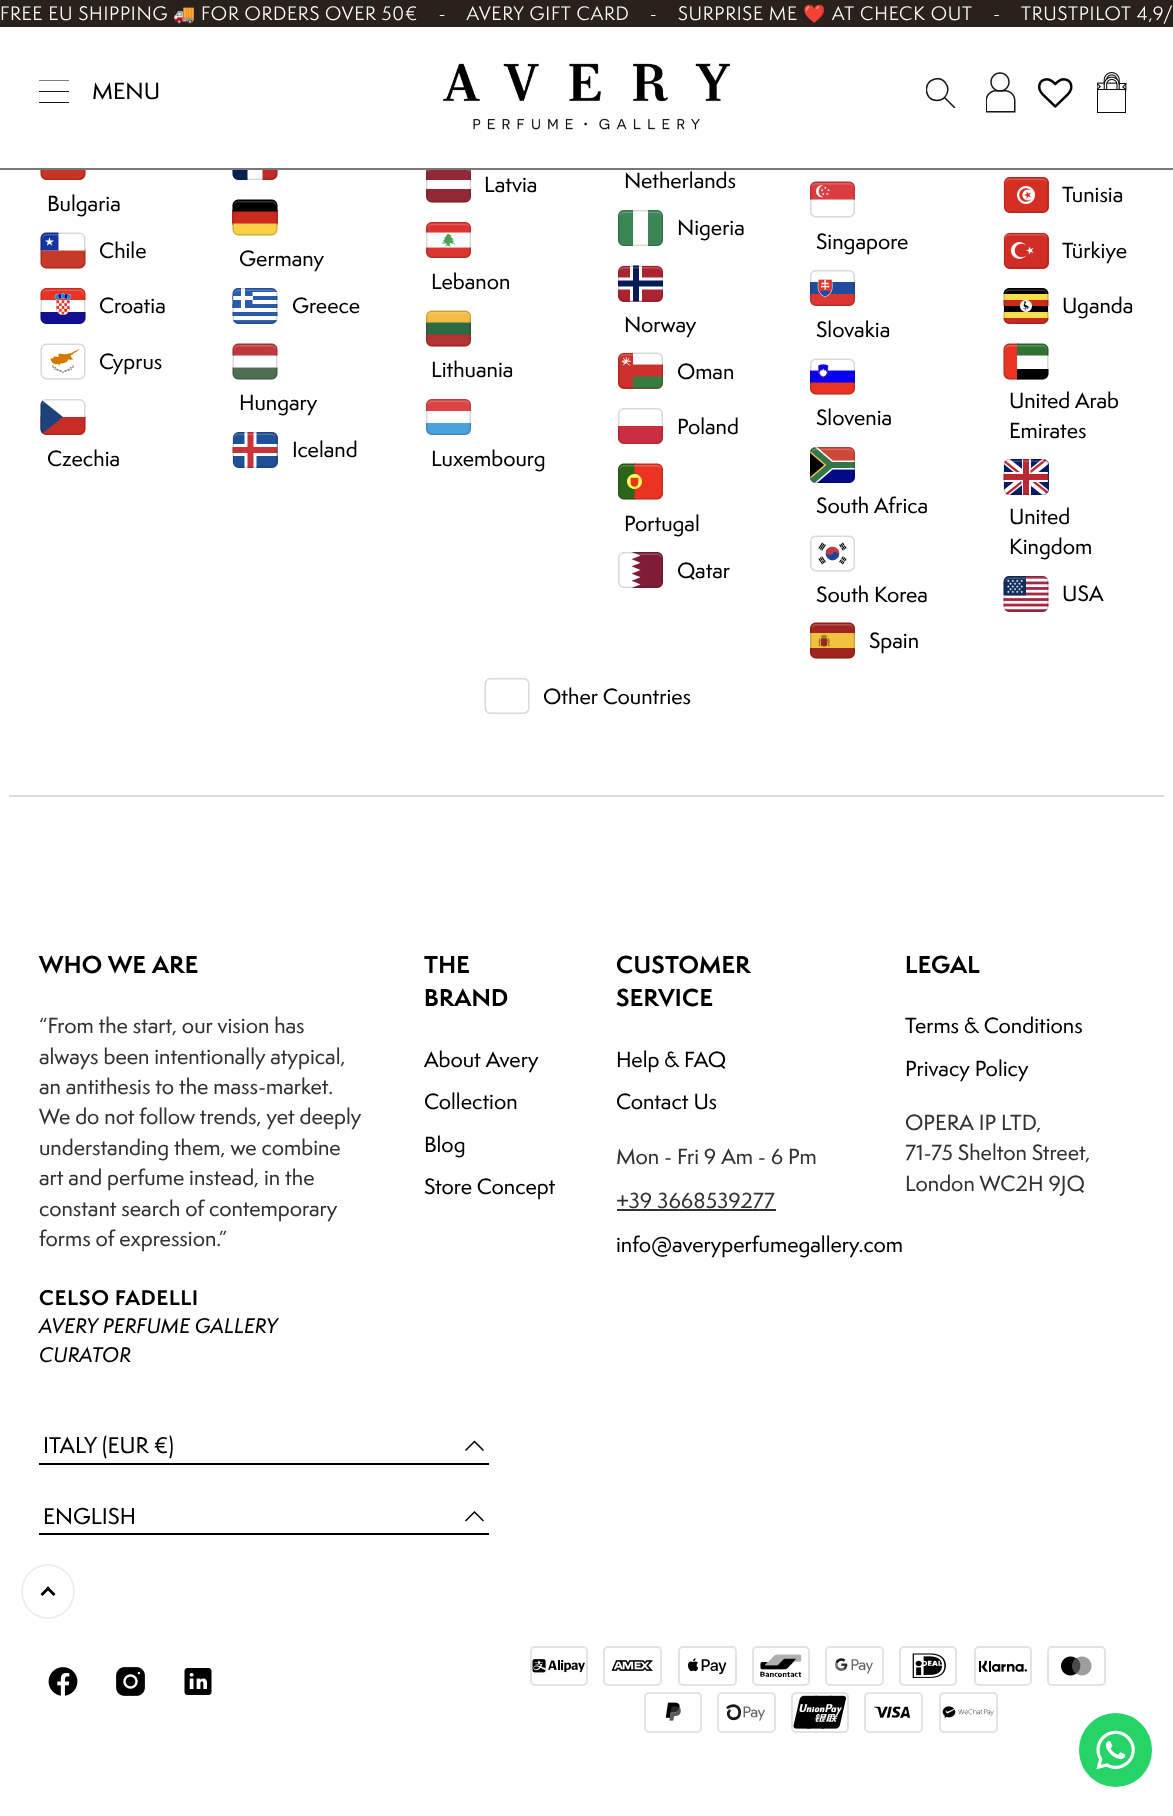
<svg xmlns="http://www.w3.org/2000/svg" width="1173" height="1816">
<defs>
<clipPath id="clip1"><rect x="39" y="80" width="30" height="24"/></clipPath>
<clipPath id="clip2"><rect x="926" y="78" width="30" height="30"/></clipPath>
</defs>
<rect width="100%" height="100%" fill="#fff"/>
<rect width="1173" height="27" fill="#28211c"/>
<text x="0" y="20" style="font-family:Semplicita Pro;font-size:18px;letter-spacing:0.75px;fill:#fff">FREE EU SHIPPING</text>
<text x="173" y="20" style="font-family:Noto Color Emoji;font-size:18px;letter-spacing:0.75px;fill:#fff">🚚</text>
<text x="201" y="20" style="font-family:Semplicita Pro;font-size:18px;letter-spacing:0.75px;fill:#fff" xml:space="preserve">FOR ORDERS OVER 50€    -    AVERY GIFT CARD    -    SURPRISE ME</text>
<text x="803" y="20" style="font-family:Noto Color Emoji;font-size:18px;letter-spacing:0.75px;fill:#fff">❤️</text>
<text x="832" y="20" style="font-family:Semplicita Pro;font-size:18px;letter-spacing:0.75px;fill:#fff" xml:space="preserve">AT CHECK OUT    -    TRUSTPILOT 4,9/</text>
<rect y="168" width="1173" height="2" fill="#777"/>
<g clip-path="url(#clip1)">
<path d="M39 80h30" fill="none" stroke="#171717" stroke-width="1.1"/>
</g>
<rect x="39" y="91" width="30" height="1" fill="#171717"/>
<rect x="39" y="102" width="30" height="1" fill="#171717"/>
<text x="92" y="99" style="font-family:Semplicita Pro;font-size:21.5px;font-weight:500;fill:#000">MENU</text>
<image x="443" y="63" width="288" height="67" href="media/1.png"/>
<g clip-path="url(#clip2)">
<path d="M944.5 97.5c-2 2-4.5 3-7.5 3c-13 0-14.5-19-2-21.5c4-1 8 .5 10.5 4c3.5 4 3 10.5-1 14.5l10.5 10.5z" fill="none" stroke="#171717" stroke-width="1.5"/>
</g>
<image x="986" y="72" width="30" height="41" href="media/2.png"/>
<image x="1038" y="78" width="35" height="30" href="media/3.png"/>
<image x="1097" y="72" width="30" height="41" href="media/4.png"/>
<image x="40" y="170" width="46" height="10" href="media/5.png"/>
<text x="47" y="211" style="font-family:Semplicita Pro;font-size:20.25px;font-weight:500;fill:#000">Bulgaria</text>
<image x="40" y="232" width="46" height="37" href="media/6.png"/>
<text x="99" y="258" style="font-family:Semplicita Pro;font-size:20.25px;font-weight:500;fill:#000">Chile</text>
<image x="40" y="288" width="46" height="36" href="media/7.png"/>
<text x="99" y="313" style="font-family:Semplicita Pro;font-size:20.25px;font-weight:500;fill:#000">Croatia</text>
<image x="40" y="343" width="46" height="37" href="media/8.png"/>
<text x="99" y="369" style="font-family:Semplicita Pro;font-size:20.25px;font-weight:500;fill:#000">Cyprus</text>
<image x="40" y="399" width="46" height="36" href="media/9.png"/>
<text x="47" y="466" style="font-family:Semplicita Pro;font-size:20.25px;font-weight:500;fill:#000">Czechia</text>
<image x="232" y="170" width="46" height="10" href="media/10.png"/>
<image x="232" y="199" width="46" height="37" href="media/11.png"/>
<text x="239" y="266" style="font-family:Semplicita Pro;font-size:20.25px;font-weight:500;fill:#000">Germany</text>
<image x="232" y="288" width="46" height="36" href="media/12.png"/>
<text x="292" y="313" style="font-family:Semplicita Pro;font-size:20.25px;font-weight:500;fill:#000">Greece</text>
<image x="232" y="343" width="46" height="37" href="media/13.png"/>
<text x="239" y="410" style="font-family:Semplicita Pro;font-size:20.25px;font-weight:500;fill:#000">Hungary</text>
<image x="232" y="432" width="46" height="36" href="media/14.png"/>
<text x="292" y="457" style="font-family:Semplicita Pro;font-size:20.25px;font-weight:500;fill:#000">Iceland</text>
<image x="426" y="170" width="45" height="33" href="media/15.png"/>
<text x="484" y="192" style="font-family:Semplicita Pro;font-size:20.25px;font-weight:500;fill:#000">Latvia</text>
<image x="426" y="222" width="45" height="36" href="media/16.png"/>
<text x="431" y="289" style="font-family:Semplicita Pro;font-size:20.25px;font-weight:500;fill:#000">Lebanon</text>
<image x="426" y="310" width="45" height="37" href="media/17.png"/>
<text x="431" y="377" style="font-family:Semplicita Pro;font-size:20.25px;font-weight:500;fill:#000">Lithuania</text>
<image x="426" y="399" width="45" height="36" href="media/18.png"/>
<text x="431" y="466" style="font-family:Semplicita Pro;font-size:20.25px;font-weight:500;fill:#000">Luxembourg</text>
<text x="624" y="188" style="font-family:Semplicita Pro;font-size:20.25px;font-weight:500;fill:#000">Netherlands</text>
<image x="618" y="210" width="45" height="36" href="media/19.png"/>
<text x="677" y="235" style="font-family:Semplicita Pro;font-size:20.25px;font-weight:500;fill:#000">Nigeria</text>
<image x="618" y="265" width="45" height="37" href="media/20.png"/>
<text x="624" y="332" style="font-family:Semplicita Pro;font-size:20.25px;font-weight:500;fill:#000">Norway</text>
<image x="618" y="352" width="45" height="37" href="media/21.png"/>
<text x="677" y="379" style="font-family:Semplicita Pro;font-size:20.25px;font-weight:500;fill:#000">Oman</text>
<image x="618" y="408" width="45" height="36" href="media/22.png"/>
<text x="677" y="434" style="font-family:Semplicita Pro;font-size:20.25px;font-weight:500;fill:#000">Poland</text>
<image x="618" y="463" width="45" height="37" href="media/23.png"/>
<text x="624" y="531" style="font-family:Semplicita Pro;font-size:20.25px;font-weight:500;fill:#000">Portugal</text>
<image x="618" y="552" width="45" height="36" href="media/24.png"/>
<text x="677" y="578" style="font-family:Semplicita Pro;font-size:20.25px;font-weight:500;fill:#000">Qatar</text>
<image x="810" y="181" width="45" height="37" href="media/25.png"/>
<text x="816" y="249" style="font-family:Semplicita Pro;font-size:20.25px;font-weight:500;fill:#000">Singapore</text>
<image x="810" y="270" width="45" height="36" href="media/26.png"/>
<text x="816" y="337" style="font-family:Semplicita Pro;font-size:20.25px;font-weight:500;fill:#000">Slovakia</text>
<image x="810" y="358" width="45" height="37" href="media/27.png"/>
<text x="816" y="425" style="font-family:Semplicita Pro;font-size:20.25px;font-weight:500;fill:#000">Slovenia</text>
<image x="810" y="447" width="45" height="36" href="media/28.png"/>
<text x="816" y="513" style="font-family:Semplicita Pro;font-size:20.25px;font-weight:500;fill:#000">South Africa</text>
<image x="810" y="535" width="45" height="37" href="media/29.png"/>
<text x="816" y="602" style="font-family:Semplicita Pro;font-size:20.25px;font-weight:500;fill:#000">South Korea</text>
<image x="810" y="622" width="45" height="37" href="media/30.png"/>
<text x="869" y="648" style="font-family:Semplicita Pro;font-size:20.25px;font-weight:500;fill:#000">Spain</text>
<image x="1003" y="177" width="46" height="36" href="media/31.png"/>
<text x="1062" y="202" style="font-family:Semplicita Pro;font-size:20.25px;font-weight:500;fill:#000">Tunisia</text>
<image x="1003" y="232" width="46" height="37" href="media/32.png"/>
<text x="1062" y="258" style="font-family:Semplicita Pro;font-size:20.25px;font-weight:500;fill:#000">Türkiye</text>
<image x="1003" y="288" width="46" height="36" href="media/33.png"/>
<text x="1062" y="313" style="font-family:Semplicita Pro;font-size:20.25px;font-weight:500;fill:#000">Uganda</text>
<image x="1003" y="343" width="46" height="37" href="media/34.png"/>
<text x="1009" y="408" style="font-family:Semplicita Pro;font-size:20.25px;font-weight:500;fill:#000">United Arab</text>
<text x="1009" y="438" style="font-family:Semplicita Pro;font-size:20.25px;font-weight:500;fill:#000">Emirates</text>
<image x="1003" y="459" width="46" height="36" href="media/35.png"/>
<text x="1009" y="524" style="font-family:Semplicita Pro;font-size:20.25px;font-weight:500;fill:#000">United</text>
<text x="1009" y="554" style="font-family:Semplicita Pro;font-size:20.25px;font-weight:500;fill:#000">Kingdom</text>
<image x="1003" y="576" width="46" height="36" href="media/36.png"/>
<text x="1062" y="601" style="font-family:Semplicita Pro;font-size:20.25px;font-weight:500;fill:#000">USA</text>
<image x="484" y="678" width="46" height="36" href="media/37.png"/>
<text x="543" y="704" style="font-family:Semplicita Pro;font-size:20.25px;font-weight:500;fill:#000">Other Countries</text>
<rect x="9" y="795" width="1155" height="2" fill="#dbdbdb"/>
<text x="39" y="973" style="font-family:Semplicita Pro;font-size:22.5px;font-weight:bold;letter-spacing:0.25px;fill:#000">WHO WE ARE</text>
<text x="39" y="1033" style="font-family:Semplicita Pro;font-size:20.25px;font-weight:500;fill:#333232">“From the start, our vision has</text>
<text x="39" y="1064" style="font-family:Semplicita Pro;font-size:20.25px;font-weight:500;fill:#333232">always been intentionally atypical,</text>
<text x="39" y="1094" style="font-family:Semplicita Pro;font-size:20.25px;font-weight:500;fill:#333232">an antithesis to the mass-market.</text>
<text x="39" y="1124" style="font-family:Semplicita Pro;font-size:20.25px;font-weight:500;fill:#333232">We do not follow trends, yet deeply</text>
<text x="39" y="1155" style="font-family:Semplicita Pro;font-size:20.25px;font-weight:500;fill:#333232">understanding them, we combine</text>
<text x="39" y="1185" style="font-family:Semplicita Pro;font-size:20.25px;font-weight:500;fill:#333232">art and perfume instead, in the</text>
<text x="39" y="1216" style="font-family:Semplicita Pro;font-size:20.25px;font-weight:500;fill:#333232">constant search of contemporary</text>
<text x="39" y="1246" style="font-family:Semplicita Pro;font-size:20.25px;font-weight:500;fill:#333232">forms of expression.”</text>
<text x="39" y="1305" style="font-family:Semplicita Pro;font-size:19.5px;font-weight:bold;letter-spacing:0.75px;fill:#000">CELSO FADELLI</text>
<text x="39" y="1333" style="font-family:Semplicita Pro;font-size:19.5px;font-weight:500;font-style:italic;fill:#000">AVERY PERFUME GALLERY</text>
<text x="39" y="1362" style="font-family:Semplicita Pro;font-size:19.5px;font-weight:500;font-style:italic;fill:#000">CURATOR</text>
<rect x="39" y="1463" width="450" height="2" fill="#000"/>
<text x="43" y="1453" style="font-family:Semplicita Pro;font-size:21px;font-weight:500;fill:#000">ITALY (EUR €)</text>
<path d="M483.5 1450.5l-9-9l-9 9" fill="none" stroke="#000" stroke-width="1.5"/>
<rect x="39" y="1533" width="450" height="2" fill="#000"/>
<text x="43" y="1524" style="font-family:Semplicita Pro;font-size:21px;font-weight:500;fill:#000">ENGLISH</text>
<path d="M483.5 1521l-9-9l-9 9" fill="none" stroke="#000" stroke-width="1.5"/>
<text x="424" y="973" style="font-family:Semplicita Pro;font-size:22.5px;font-weight:bold;letter-spacing:0.25px;fill:#000">THE</text>
<text x="424" y="1006" style="font-family:Semplicita Pro;font-size:22.5px;font-weight:bold;letter-spacing:0.25px;fill:#000">BRAND</text>
<text x="424" y="1067" style="font-family:Semplicita Pro;font-size:20.25px;font-weight:500;fill:#000">About Avery</text>
<text x="424" y="1109" style="font-family:Semplicita Pro;font-size:20.25px;font-weight:500;fill:#000">Collection</text>
<text x="424" y="1152" style="font-family:Semplicita Pro;font-size:20.25px;font-weight:500;fill:#000">Blog</text>
<text x="424" y="1194" style="font-family:Semplicita Pro;font-size:20.25px;font-weight:500;fill:#000">Store Concept</text>
<text x="616" y="973" style="font-family:Semplicita Pro;font-size:22.5px;font-weight:bold;letter-spacing:0.25px;fill:#000">CUSTOMER</text>
<text x="616" y="1006" style="font-family:Semplicita Pro;font-size:22.5px;font-weight:bold;letter-spacing:0.25px;fill:#000">SERVICE</text>
<text x="616" y="1067" style="font-family:Semplicita Pro;font-size:20.25px;font-weight:500;fill:#000">Help &amp; FAQ</text>
<text x="616" y="1109" style="font-family:Semplicita Pro;font-size:20.25px;font-weight:500;fill:#000">Contact Us</text>
<text x="616" y="1164" style="font-family:Semplicita Pro;font-size:20.25px;font-weight:500;fill:#333232">Mon - Fri 9 Am - 6 Pm</text>
<text x="616" y="1208" style="font-family:Semplicita Pro;font-size:20.25px;font-weight:500;fill:#333232">+39 3668539277</text>
<rect x="617" y="1209" width="159" height="2" fill="#333232"/>
<text x="616" y="1252" style="font-family:Semplicita Pro;font-size:20.25px;font-weight:500;fill:#000">info@averyperfumegallery.com</text>
<text x="905" y="973" style="font-family:Semplicita Pro;font-size:22.5px;font-weight:bold;letter-spacing:0.25px;fill:#000">LEGAL</text>
<text x="905" y="1033" style="font-family:Semplicita Pro;font-size:20.25px;font-weight:500;fill:#000">Terms &amp; Conditions</text>
<text x="905" y="1076" style="font-family:Semplicita Pro;font-size:20.25px;font-weight:500;fill:#000">Privacy Policy</text>
<text x="905" y="1130" style="font-family:Semplicita Pro;font-size:20.25px;font-weight:500;fill:#333232">OPERA IP LTD,</text>
<text x="905" y="1160" style="font-family:Semplicita Pro;font-size:20.25px;font-weight:500;fill:#333232">71-75 Shelton Street,</text>
<text x="905" y="1191" style="font-family:Semplicita Pro;font-size:20.25px;font-weight:500;fill:#333232">London WC2H 9JQ</text>
<image x="48" y="1667" width="30" height="29" href="media/38.png"/>
<image x="116" y="1667" width="29" height="29" href="media/39.png"/>
<image x="184" y="1668" width="28" height="27" href="media/40.png"/>
<rect x="531" y="1647" width="56" height="38" rx="4" fill="none" stroke="#e3e3e3" stroke-width="2"/>
<image x="532" y="1659" width="53" height="14" href="media/41.png"/>
<rect x="604" y="1647" width="57" height="38" rx="4" fill="none" stroke="#e3e3e3" stroke-width="2"/>
<image x="611" y="1660" width="42" height="11" href="media/42.png"/>
<rect x="679" y="1647" width="57" height="38" rx="4" fill="none" stroke="#e3e3e3" stroke-width="2"/>
<image x="688" y="1658" width="39" height="17" href="media/43.png"/>
<rect x="753" y="1647" width="56" height="38" rx="4" fill="none" stroke="#e3e3e3" stroke-width="2"/>
<image x="760" y="1654" width="42" height="24" href="media/44.png"/>
<rect x="826" y="1647" width="57" height="38" rx="4" fill="none" stroke="#e3e3e3" stroke-width="2"/>
<image x="835" y="1658" width="38" height="16" href="media/45.png"/>
<rect x="900" y="1647" width="56" height="38" rx="4" fill="none" stroke="#e3e3e3" stroke-width="2"/>
<image x="912" y="1653" width="34" height="26" href="media/46.png"/>
<rect x="975" y="1647" width="56" height="38" rx="4" fill="none" stroke="#e3e3e3" stroke-width="2"/>
<image x="979" y="1660" width="48" height="12" href="media/47.png"/>
<rect x="1048" y="1647" width="57" height="38" rx="4" fill="none" stroke="#e3e3e3" stroke-width="2"/>
<image x="1061" y="1656" width="31" height="20" href="media/48.png"/>
<rect x="645" y="1693" width="56" height="39" rx="4" fill="none" stroke="#e3e3e3" stroke-width="2"/>
<image x="665" y="1702" width="16" height="19" href="media/49.png"/>
<rect x="718" y="1693" width="57" height="39" rx="4" fill="none" stroke="#e3e3e3" stroke-width="2"/>
<image x="726" y="1704" width="39" height="17" href="media/50.png"/>
<rect x="792" y="1693" width="56" height="39" rx="4" fill="none" stroke="#e3e3e3" stroke-width="2"/>
<image x="793" y="1695" width="53" height="34" href="media/51.png"/>
<rect x="865" y="1693" width="57" height="39" rx="4" fill="none" stroke="#e3e3e3" stroke-width="2"/>
<image x="874" y="1706" width="36" height="12" href="media/52.png"/>
<rect x="940" y="1693" width="57" height="39" rx="4" fill="none" stroke="#e3e3e3" stroke-width="2"/>
<image x="942" y="1706" width="52" height="12" href="media/53.png"/>
<path d="M22 1591.5c0-14.5 11.5-26.5 26-26.5c14.5 0 26 12 26 26.5c0 14.5-11.5 26.5-26 26.5c-14.5 0-26-12-26-26.5z" fill="none" stroke="#eaeaea" stroke-width="1.5"/>
<path d="M42.5 1596l-2-2l7.5-7.5l2 2z" fill="#000"/>
<path d="M53.5 1596l-7.5-7.5l2-2l7.5 7.5z" fill="#000"/>
<rect x="1079" y="1713" width="73" height="74" rx="36.5" fill="#25d366"/>
<image x="1096" y="1730" width="39" height="40" href="media/54.png"/>
</svg>
